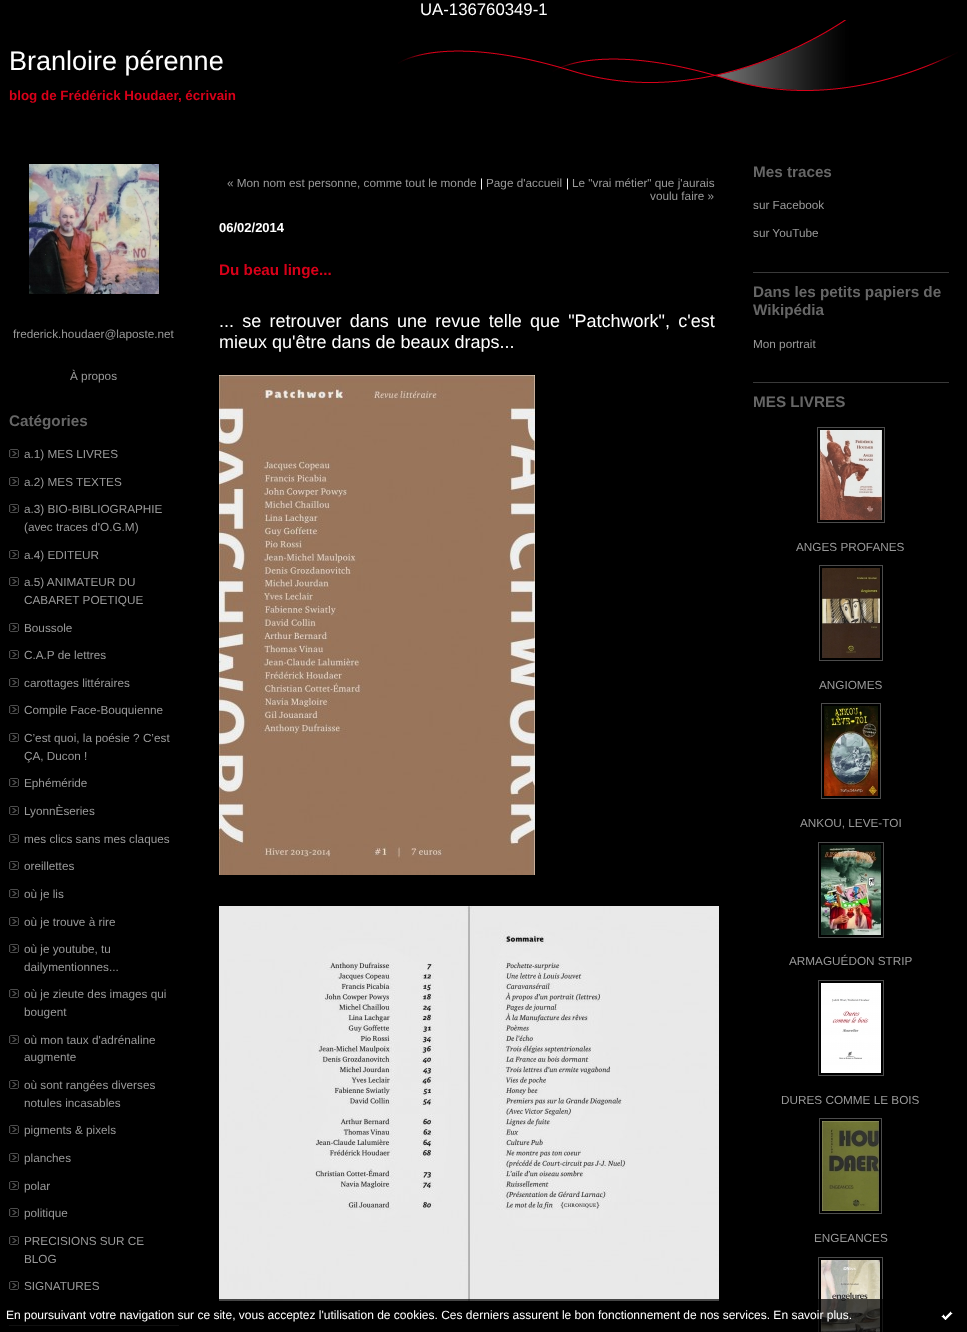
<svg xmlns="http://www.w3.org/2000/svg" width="967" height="1332">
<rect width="100%" height="100%" fill="#000"/>
<text x="420" y="15" style="font-family:Liberation Sans;font-size:16.75px;fill:#fff">UA-136760349-1</text>
<image x="398" y="20" width="560" height="71" href="media/1.png"/>
<text x="9" y="70" style="font-family:Liberation Sans;font-size:27px;fill:#fff">Branloire pérenne</text>
<text x="9" y="100" style="font-family:Liberation Sans;font-size:13.4px;font-weight:bold;fill:#d80019">blog de Frédérick Houdaer, écrivain</text>
<text x="227" y="187" style="font-family:Liberation Sans;font-size:11.75px;fill:#999">« Mon nom est personne, comme tout le monde</text>
<text x="480" y="187" style="font-family:Liberation Sans;font-size:11.75px;fill:#fff">|</text>
<text x="486" y="187" style="font-family:Liberation Sans;font-size:11.75px;fill:#999">Page d'accueil</text>
<text x="566" y="187" style="font-family:Liberation Sans;font-size:11.75px;fill:#fff">|</text>
<text x="572" y="187" style="font-family:Liberation Sans;font-size:11.75px;fill:#999">Le "vrai métier" que j'aurais</text>
<text x="650" y="200" style="font-family:Liberation Sans;font-size:11.75px;fill:#999">voulu faire »</text>
<text x="219" y="232" style="font-family:Liberation Sans;font-size:13px;font-weight:bold;fill:#fff">06/02/2014</text>
<text x="219" y="275" style="font-family:Liberation Sans;font-size:15.25px;font-weight:bold;fill:#d80019">Du beau linge...</text>
<text x="219" y="327" word-spacing="3.25" style="font-family:Liberation Sans;font-size:18px;fill:#fff">... se retrouver dans une revue telle que "Patchwork", c'est</text>
<text x="219" y="348" style="font-family:Liberation Sans;font-size:18px;fill:#fff">mieux qu'être dans de beaux draps...</text>
<image x="219" y="375" width="316" height="500" href="media/2.png"/>
<image x="219" y="906" width="500" height="395" href="media/3.png"/>
<rect x="753" y="272" width="196" height="1" fill="#393939"/>
<text x="753" y="177" style="font-family:Liberation Sans;font-size:15.25px;font-weight:bold;fill:#666">Mes traces</text>
<text x="753" y="209" style="font-family:Liberation Sans;font-size:11.75px;fill:#999">sur Facebook</text>
<text x="753" y="237" style="font-family:Liberation Sans;font-size:11.75px;fill:#999">sur YouTube</text>
<rect x="753" y="382" width="196" height="1" fill="#393939"/>
<text x="753" y="297" style="font-family:Liberation Sans;font-size:15.25px;font-weight:bold;fill:#666">Dans les petits papiers de</text>
<text x="753" y="315" style="font-family:Liberation Sans;font-size:15.25px;font-weight:bold;fill:#666">Wikipédia</text>
<text x="753" y="348" style="font-family:Liberation Sans;font-size:11.75px;fill:#999">Mon portrait</text>
<text x="753" y="407" style="font-family:Liberation Sans;font-size:15.25px;font-weight:bold;fill:#666">MES LIVRES</text>
<rect x="817.5" y="427.5" width="67" height="95" fill="none" stroke="#4c4c4c"/>
<image x="820" y="430" width="62" height="90" href="media/4.png"/>
<text x="796" y="551" style="font-family:Liberation Sans;font-size:11.75px;fill:#999">ANGES PROFANES</text>
<rect x="819.5" y="565.5" width="63" height="95" fill="none" stroke="#4c4c4c"/>
<image x="822" y="568" width="58" height="90" href="media/5.png"/>
<text x="819" y="689" style="font-family:Liberation Sans;font-size:11.75px;fill:#999">ANGIOMES</text>
<rect x="821.5" y="703.5" width="59" height="95" fill="none" stroke="#4c4c4c"/>
<image x="824" y="706" width="54" height="90" href="media/6.png"/>
<text x="800" y="827" style="font-family:Liberation Sans;font-size:11.75px;fill:#999">ANKOU, LEVE-TOI</text>
<rect x="818.5" y="842.5" width="65" height="95" fill="none" stroke="#4c4c4c"/>
<image x="821" y="845" width="60" height="90" href="media/7.png"/>
<text x="789" y="965" style="font-family:Liberation Sans;font-size:11.75px;fill:#999">ARMAGUÉDON STRIP</text>
<rect x="818.5" y="980.5" width="65" height="95" fill="none" stroke="#4c4c4c"/>
<image x="821" y="983" width="60" height="90" href="media/8.png"/>
<text x="781" y="1104" style="font-family:Liberation Sans;font-size:11.75px;fill:#999">DURES COMME LE BOIS</text>
<rect x="819.5" y="1118.5" width="62" height="95" fill="none" stroke="#4c4c4c"/>
<image x="822" y="1121" width="57" height="90" href="media/9.png"/>
<text x="814" y="1242" style="font-family:Liberation Sans;font-size:11.75px;fill:#999">ENGEANCES</text>
<rect x="818.5" y="1257.5" width="64" height="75" fill="none" stroke="#4c4c4c"/>
<image x="821" y="1260" width="59" height="72" href="media/10.png"/>
<image x="29" y="164" width="130" height="130" href="media/11.png"/>
<text x="13" y="338" style="font-family:Liberation Sans;font-size:11.75px;fill:#999">frederick.houdaer@laposte.net</text>
<text x="70" y="380" style="font-family:Liberation Sans;font-size:11.75px;fill:#999">À propos</text>
<rect x="9" y="1325" width="170" height="1" fill="#393939"/>
<text x="9" y="426" style="font-family:Liberation Sans;font-size:15.25px;font-weight:bold;fill:#666">Catégories</text>
<image x="9" y="449" width="10" height="9" href="media/12.png"/>
<text x="24" y="458" style="font-family:Liberation Sans;font-size:11.75px;fill:#999">a.1) MES LIVRES</text>
<image x="9" y="477" width="10" height="9" href="media/12.png"/>
<text x="24" y="486" style="font-family:Liberation Sans;font-size:11.75px;fill:#999">a.2) MES TEXTES</text>
<image x="9" y="504" width="10" height="9" href="media/12.png"/>
<text x="24" y="513" style="font-family:Liberation Sans;font-size:11.75px;fill:#999">a.3) BIO-BIBLIOGRAPHIE</text>
<text x="24" y="531" style="font-family:Liberation Sans;font-size:11.75px;fill:#999">(avec traces d'O.G.M)</text>
<image x="9" y="550" width="10" height="9" href="media/12.png"/>
<text x="24" y="559" style="font-family:Liberation Sans;font-size:11.75px;fill:#999">a.4) EDITEUR</text>
<image x="9" y="577" width="10" height="9" href="media/12.png"/>
<text x="24" y="586" style="font-family:Liberation Sans;font-size:11.75px;fill:#999">a.5) ANIMATEUR DU</text>
<text x="24" y="604" style="font-family:Liberation Sans;font-size:11.75px;fill:#999">CABARET POETIQUE</text>
<image x="9" y="623" width="10" height="9" href="media/12.png"/>
<text x="24" y="632" style="font-family:Liberation Sans;font-size:11.75px;fill:#999">Boussole</text>
<image x="9" y="650" width="10" height="9" href="media/12.png"/>
<text x="24" y="659" style="font-family:Liberation Sans;font-size:11.75px;fill:#999">C.A.P de lettres</text>
<image x="9" y="678" width="10" height="9" href="media/12.png"/>
<text x="24" y="687" style="font-family:Liberation Sans;font-size:11.75px;fill:#999">carottages littéraires</text>
<image x="9" y="705" width="10" height="9" href="media/12.png"/>
<text x="24" y="714" style="font-family:Liberation Sans;font-size:11.75px;fill:#999">Compile Face-Bouquienne</text>
<image x="9" y="733" width="10" height="9" href="media/12.png"/>
<text x="24" y="742" style="font-family:Liberation Sans;font-size:11.75px;fill:#999">C’est quoi, la poésie ? C’est</text>
<text x="24" y="760" style="font-family:Liberation Sans;font-size:11.75px;fill:#999">ÇA, Ducon !</text>
<image x="9" y="778" width="10" height="9" href="media/12.png"/>
<text x="24" y="787" style="font-family:Liberation Sans;font-size:11.75px;fill:#999">Ephéméride</text>
<image x="9" y="806" width="10" height="9" href="media/12.png"/>
<text x="24" y="815" style="font-family:Liberation Sans;font-size:11.75px;fill:#999">LyonnÈseries</text>
<image x="9" y="834" width="10" height="9" href="media/12.png"/>
<text x="24" y="843" style="font-family:Liberation Sans;font-size:11.75px;fill:#999">mes clics sans mes claques</text>
<image x="9" y="861" width="10" height="9" href="media/12.png"/>
<text x="24" y="870" style="font-family:Liberation Sans;font-size:11.75px;fill:#999">oreillettes</text>
<image x="9" y="889" width="10" height="9" href="media/12.png"/>
<text x="24" y="898" style="font-family:Liberation Sans;font-size:11.75px;fill:#999">où je lis</text>
<image x="9" y="917" width="10" height="9" href="media/12.png"/>
<text x="24" y="926" style="font-family:Liberation Sans;font-size:11.75px;fill:#999">où je trouve à rire</text>
<image x="9" y="944" width="10" height="9" href="media/12.png"/>
<text x="24" y="953" style="font-family:Liberation Sans;font-size:11.75px;fill:#999">où je youtube, tu</text>
<text x="24" y="971" style="font-family:Liberation Sans;font-size:11.75px;fill:#999">dailymentionnes...</text>
<image x="9" y="989" width="10" height="9" href="media/12.png"/>
<text x="24" y="998" style="font-family:Liberation Sans;font-size:11.75px;fill:#999">où je zieute des images qui</text>
<text x="24" y="1016" style="font-family:Liberation Sans;font-size:11.75px;fill:#999">bougent</text>
<image x="9" y="1035" width="10" height="9" href="media/12.png"/>
<text x="24" y="1044" style="font-family:Liberation Sans;font-size:11.75px;fill:#999">où mon taux d'adrénaline</text>
<text x="24" y="1061" style="font-family:Liberation Sans;font-size:11.75px;fill:#999">augmente</text>
<image x="9" y="1080" width="10" height="9" href="media/12.png"/>
<text x="24" y="1089" style="font-family:Liberation Sans;font-size:11.75px;fill:#999">où sont rangées diverses</text>
<text x="24" y="1107" style="font-family:Liberation Sans;font-size:11.75px;fill:#999">notules incasables</text>
<image x="9" y="1125" width="10" height="9" href="media/12.png"/>
<text x="24" y="1134" style="font-family:Liberation Sans;font-size:11.75px;fill:#999">pigments &amp; pixels</text>
<image x="9" y="1153" width="10" height="9" href="media/12.png"/>
<text x="24" y="1162" style="font-family:Liberation Sans;font-size:11.75px;fill:#999">planches</text>
<image x="9" y="1181" width="10" height="9" href="media/12.png"/>
<text x="24" y="1190" style="font-family:Liberation Sans;font-size:11.75px;fill:#999">polar</text>
<image x="9" y="1208" width="10" height="9" href="media/12.png"/>
<text x="24" y="1217" style="font-family:Liberation Sans;font-size:11.75px;fill:#999">politique</text>
<image x="9" y="1236" width="10" height="9" href="media/12.png"/>
<text x="24" y="1245" style="font-family:Liberation Sans;font-size:11.75px;fill:#999">PRECISIONS SUR CE</text>
<text x="24" y="1263" style="font-family:Liberation Sans;font-size:11.75px;fill:#999">BLOG</text>
<image x="9" y="1281" width="10" height="9" href="media/12.png"/>
<text x="24" y="1290" style="font-family:Liberation Sans;font-size:11.75px;fill:#999">SIGNATURES</text>
<rect x="9" y="1299" width="874" height="33" fill="#000000b3"/>
<text x="6" y="1319" style="font-family:Liberation Sans;font-size:12px;fill:#fff">En poursuivant votre navigation sur ce site, vous acceptez l'utilisation de cookies. Ces derniers assurent le bon fonctionnement de nos services. En savoir plus.</text>
<image x="941" y="1311" width="12" height="9" href="media/13.png"/>
</svg>
